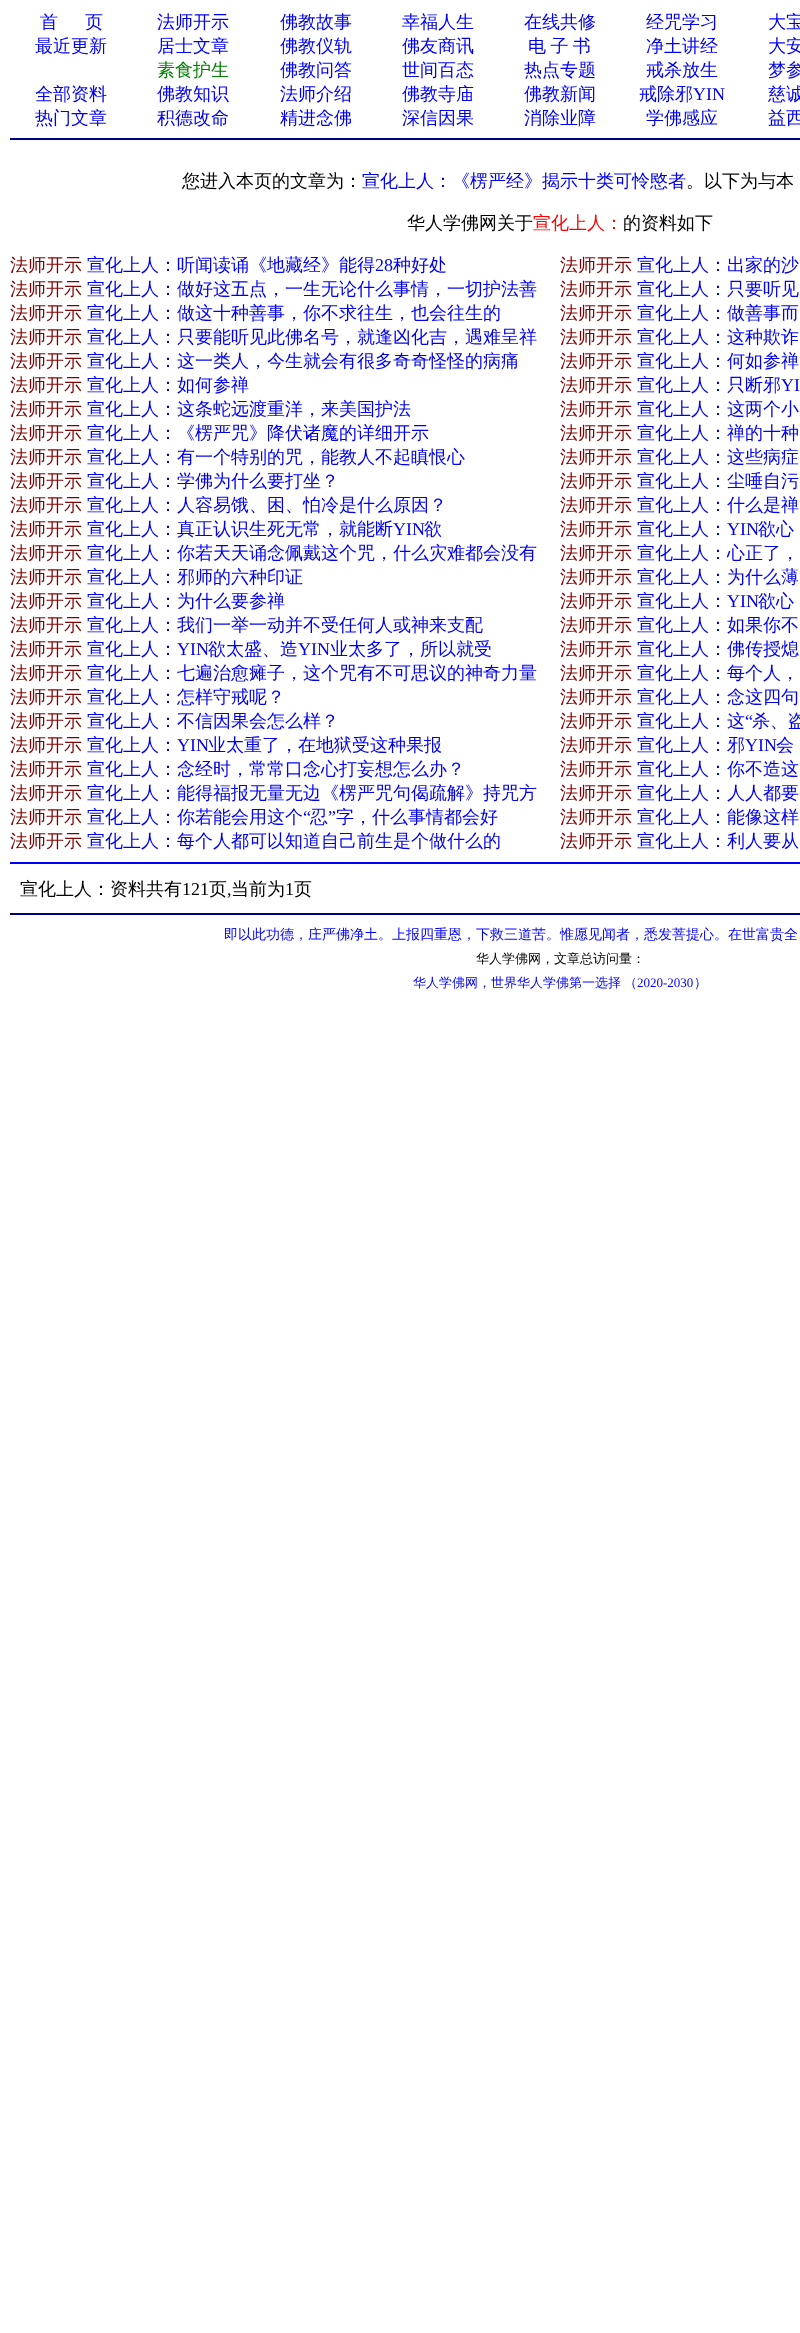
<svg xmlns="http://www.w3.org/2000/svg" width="800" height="2333">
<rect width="100%" height="100%" fill="#fff"/>
<text x="40" y="28" style="font-family:WenQuanYi Zen Hei;font-size:18px;font-weight:500;fill:#00f">首</text>
<text x="85" y="28" style="font-family:WenQuanYi Zen Hei;font-size:18px;font-weight:500;fill:#00f">页</text>
<text x="157" y="28" style="font-family:WenQuanYi Zen Hei;font-size:18px;font-weight:500;fill:#00e">法师开示</text>
<text x="280" y="28" style="font-family:WenQuanYi Zen Hei;font-size:18px;font-weight:500;fill:#00e">佛教故事</text>
<text x="402" y="28" style="font-family:WenQuanYi Zen Hei;font-size:18px;font-weight:500;fill:#00e">幸福人生</text>
<text x="524" y="28" style="font-family:WenQuanYi Zen Hei;font-size:18px;font-weight:500;fill:#00e">在线共修</text>
<text x="646" y="28" style="font-family:WenQuanYi Zen Hei;font-size:18px;font-weight:500;fill:#00e">经咒学习</text>
<text x="768" y="28" style="font-family:WenQuanYi Zen Hei;font-size:18px;font-weight:500;fill:#00e">大宝</text>
<text x="35" y="52" style="font-family:WenQuanYi Zen Hei;font-size:18px;font-weight:500;fill:#00f">最近更新</text>
<text x="157" y="52" style="font-family:WenQuanYi Zen Hei;font-size:18px;font-weight:500;fill:#00f">居士文章</text>
<text x="280" y="52" style="font-family:WenQuanYi Zen Hei;font-size:18px;font-weight:500;fill:#00f">佛教仪轨</text>
<text x="402" y="52" style="font-family:WenQuanYi Zen Hei;font-size:18px;font-weight:500;fill:#00e">佛友商讯</text>
<text x="528" y="52" word-spacing="-1" style="font-family:WenQuanYi Zen Hei;font-size:18px;font-weight:500;fill:#00e">电 子 书</text>
<text x="646" y="52" style="font-family:WenQuanYi Zen Hei;font-size:18px;font-weight:500;fill:#00e">净土讲经</text>
<text x="768" y="52" style="font-family:WenQuanYi Zen Hei;font-size:18px;font-weight:500;fill:#00e">大安</text>
<text x="157" y="76" style="font-family:WenQuanYi Zen Hei;font-size:18px;font-weight:500;fill:#008000">素食护生</text>
<text x="280" y="76" style="font-family:WenQuanYi Zen Hei;font-size:18px;font-weight:500;fill:#00f">佛教问答</text>
<text x="402" y="76" style="font-family:WenQuanYi Zen Hei;font-size:18px;font-weight:500;fill:#00f">世间百态</text>
<text x="524" y="76" style="font-family:WenQuanYi Zen Hei;font-size:18px;font-weight:500;fill:#00e">热点专题</text>
<text x="646" y="76" style="font-family:WenQuanYi Zen Hei;font-size:18px;font-weight:500;fill:#00e">戒杀放生</text>
<text x="768" y="76" style="font-family:WenQuanYi Zen Hei;font-size:18px;font-weight:500;fill:#00e">梦参</text>
<text x="35" y="100" style="font-family:WenQuanYi Zen Hei;font-size:18px;font-weight:500;fill:#00e">全部资料</text>
<text x="157" y="100" style="font-family:WenQuanYi Zen Hei;font-size:18px;font-weight:500;fill:#00f">佛教知识</text>
<text x="280" y="100" style="font-family:WenQuanYi Zen Hei;font-size:18px;font-weight:500;fill:#00f">法师介绍</text>
<text x="402" y="100" style="font-family:WenQuanYi Zen Hei;font-size:18px;font-weight:500;fill:#00f">佛教寺庙</text>
<text x="524" y="100" style="font-family:WenQuanYi Zen Hei;font-size:18px;font-weight:500;fill:#00f">佛教新闻</text>
<text x="639" y="100" style="font-family:WenQuanYi Zen Hei;font-size:18px;font-weight:500;fill:#00e">戒除邪</text>
<text x="693" y="100" style="font-family:Liberation Serif;font-size:18px;fill:#00e">YIN</text>
<text x="768" y="100" style="font-family:WenQuanYi Zen Hei;font-size:18px;font-weight:500;fill:#00f">慈诚</text>
<text x="35" y="124" style="font-family:WenQuanYi Zen Hei;font-size:18px;font-weight:500;fill:#00e">热门文章</text>
<text x="157" y="124" style="font-family:WenQuanYi Zen Hei;font-size:18px;font-weight:500;fill:#00e">积德改命</text>
<text x="280" y="124" style="font-family:WenQuanYi Zen Hei;font-size:18px;font-weight:500;fill:#00e">精进念佛</text>
<text x="402" y="124" style="font-family:WenQuanYi Zen Hei;font-size:18px;font-weight:500;fill:#00e">深信因果</text>
<text x="524" y="124" style="font-family:WenQuanYi Zen Hei;font-size:18px;font-weight:500;fill:#00e">消除业障</text>
<text x="646" y="124" style="font-family:WenQuanYi Zen Hei;font-size:18px;font-weight:500;fill:#00e">学佛感应</text>
<text x="768" y="124" style="font-family:WenQuanYi Zen Hei;font-size:18px;font-weight:500;fill:#00e">益西</text>
<rect x="10" y="138" width="790" height="2" fill="#000080"/>
<text x="182" y="187" style="font-family:WenQuanYi Zen Hei;font-size:18px;font-weight:500;fill:#000">您进入本页的文章为：</text>
<text x="362" y="187" style="font-family:WenQuanYi Zen Hei;font-size:18px;font-weight:500;fill:#00e">宣化上人：《楞严经》揭示十类可怜愍者</text>
<text x="686" y="187" style="font-family:WenQuanYi Zen Hei;font-size:18px;font-weight:500;fill:#000">。以下为与本</text>
<text x="407" y="229" style="font-family:WenQuanYi Zen Hei;font-size:18px;font-weight:500;fill:#000">华人学佛网关于</text>
<text x="533" y="229" style="font-family:WenQuanYi Zen Hei;font-size:18px;font-weight:500;fill:#f00">宣化上人：</text>
<text x="623" y="229" style="font-family:WenQuanYi Zen Hei;font-size:18px;font-weight:500;fill:#000">的资料如下</text>
<text x="10" y="271" style="font-family:WenQuanYi Zen Hei;font-size:18px;font-weight:500;fill:#800000">法师开示</text>
<text x="87" y="271" style="font-family:WenQuanYi Zen Hei;font-size:18px;font-weight:500;fill:#00e">宣化上人：听闻读诵《地藏经》能得</text>
<text x="375" y="271" style="font-family:Liberation Serif;font-size:18px;fill:#00e">28</text>
<text x="393" y="271" style="font-family:WenQuanYi Zen Hei;font-size:18px;font-weight:500;fill:#00e">种好处</text>
<text x="560" y="271" style="font-family:WenQuanYi Zen Hei;font-size:18px;font-weight:500;fill:#800000">法师开示</text>
<text x="637" y="271" style="font-family:WenQuanYi Zen Hei;font-size:18px;font-weight:500;fill:#00e">宣化上人：出家的沙</text>
<text x="10" y="295" style="font-family:WenQuanYi Zen Hei;font-size:18px;font-weight:500;fill:#800000">法师开示</text>
<text x="87" y="295" style="font-family:WenQuanYi Zen Hei;font-size:18px;font-weight:500;fill:#00e">宣化上人：做好这五点，一生无论什么事情，一切护法善</text>
<text x="560" y="295" style="font-family:WenQuanYi Zen Hei;font-size:18px;font-weight:500;fill:#800000">法师开示</text>
<text x="637" y="295" style="font-family:WenQuanYi Zen Hei;font-size:18px;font-weight:500;fill:#00e">宣化上人：只要听见</text>
<text x="10" y="319" style="font-family:WenQuanYi Zen Hei;font-size:18px;font-weight:500;fill:#800000">法师开示</text>
<text x="87" y="319" style="font-family:WenQuanYi Zen Hei;font-size:18px;font-weight:500;fill:#00e">宣化上人：做这十种善事，你不求往生，也会往生的</text>
<text x="560" y="319" style="font-family:WenQuanYi Zen Hei;font-size:18px;font-weight:500;fill:#800000">法师开示</text>
<text x="637" y="319" style="font-family:WenQuanYi Zen Hei;font-size:18px;font-weight:500;fill:#00e">宣化上人：做善事而</text>
<text x="10" y="343" style="font-family:WenQuanYi Zen Hei;font-size:18px;font-weight:500;fill:#800000">法师开示</text>
<text x="87" y="343" style="font-family:WenQuanYi Zen Hei;font-size:18px;font-weight:500;fill:#00e">宣化上人：只要能听见此佛名号，就逢凶化吉，遇难呈祥</text>
<text x="560" y="343" style="font-family:WenQuanYi Zen Hei;font-size:18px;font-weight:500;fill:#800000">法师开示</text>
<text x="637" y="343" style="font-family:WenQuanYi Zen Hei;font-size:18px;font-weight:500;fill:#00e">宣化上人：这种欺诈</text>
<text x="10" y="367" style="font-family:WenQuanYi Zen Hei;font-size:18px;font-weight:500;fill:#800000">法师开示</text>
<text x="87" y="367" style="font-family:WenQuanYi Zen Hei;font-size:18px;font-weight:500;fill:#00e">宣化上人：这一类人，今生就会有很多奇奇怪怪的病痛</text>
<text x="560" y="367" style="font-family:WenQuanYi Zen Hei;font-size:18px;font-weight:500;fill:#800000">法师开示</text>
<text x="637" y="367" style="font-family:WenQuanYi Zen Hei;font-size:18px;font-weight:500;fill:#00e">宣化上人：何如参禅</text>
<text x="10" y="391" style="font-family:WenQuanYi Zen Hei;font-size:18px;font-weight:500;fill:#800000">法师开示</text>
<text x="87" y="391" style="font-family:WenQuanYi Zen Hei;font-size:18px;font-weight:500;fill:#00e">宣化上人：如何参禅</text>
<text x="560" y="391" style="font-family:WenQuanYi Zen Hei;font-size:18px;font-weight:500;fill:#800000">法师开示</text>
<text x="637" y="391" style="font-family:WenQuanYi Zen Hei;font-size:18px;font-weight:500;fill:#00e">宣化上人：只断邪</text>
<text x="781" y="391" style="font-family:Liberation Serif;font-size:18px;fill:#00e">YI</text>
<text x="10" y="415" style="font-family:WenQuanYi Zen Hei;font-size:18px;font-weight:500;fill:#800000">法师开示</text>
<text x="87" y="415" style="font-family:WenQuanYi Zen Hei;font-size:18px;font-weight:500;fill:#00e">宣化上人：这条蛇远渡重洋，来美国护法</text>
<text x="560" y="415" style="font-family:WenQuanYi Zen Hei;font-size:18px;font-weight:500;fill:#800000">法师开示</text>
<text x="637" y="415" style="font-family:WenQuanYi Zen Hei;font-size:18px;font-weight:500;fill:#00e">宣化上人：这两个小</text>
<text x="10" y="439" style="font-family:WenQuanYi Zen Hei;font-size:18px;font-weight:500;fill:#800000">法师开示</text>
<text x="87" y="439" style="font-family:WenQuanYi Zen Hei;font-size:18px;font-weight:500;fill:#00e">宣化上人：《楞严咒》降伏诸魔的详细开示</text>
<text x="560" y="439" style="font-family:WenQuanYi Zen Hei;font-size:18px;font-weight:500;fill:#800000">法师开示</text>
<text x="637" y="439" style="font-family:WenQuanYi Zen Hei;font-size:18px;font-weight:500;fill:#00e">宣化上人：禅的十种</text>
<text x="10" y="463" style="font-family:WenQuanYi Zen Hei;font-size:18px;font-weight:500;fill:#800000">法师开示</text>
<text x="87" y="463" style="font-family:WenQuanYi Zen Hei;font-size:18px;font-weight:500;fill:#00e">宣化上人：有一个特别的咒，能教人不起瞋恨心</text>
<text x="560" y="463" style="font-family:WenQuanYi Zen Hei;font-size:18px;font-weight:500;fill:#800000">法师开示</text>
<text x="637" y="463" style="font-family:WenQuanYi Zen Hei;font-size:18px;font-weight:500;fill:#00e">宣化上人：这些病症</text>
<text x="10" y="487" style="font-family:WenQuanYi Zen Hei;font-size:18px;font-weight:500;fill:#800000">法师开示</text>
<text x="87" y="487" style="font-family:WenQuanYi Zen Hei;font-size:18px;font-weight:500;fill:#00e">宣化上人：学佛为什么要打坐？</text>
<text x="560" y="487" style="font-family:WenQuanYi Zen Hei;font-size:18px;font-weight:500;fill:#800000">法师开示</text>
<text x="637" y="487" style="font-family:WenQuanYi Zen Hei;font-size:18px;font-weight:500;fill:#00e">宣化上人：尘唾自污</text>
<text x="10" y="511" style="font-family:WenQuanYi Zen Hei;font-size:18px;font-weight:500;fill:#800000">法师开示</text>
<text x="87" y="511" style="font-family:WenQuanYi Zen Hei;font-size:18px;font-weight:500;fill:#00e">宣化上人：人容易饿、困、怕冷是什么原因？</text>
<text x="560" y="511" style="font-family:WenQuanYi Zen Hei;font-size:18px;font-weight:500;fill:#800000">法师开示</text>
<text x="637" y="511" style="font-family:WenQuanYi Zen Hei;font-size:18px;font-weight:500;fill:#00e">宣化上人：什么是禅</text>
<text x="10" y="535" style="font-family:WenQuanYi Zen Hei;font-size:18px;font-weight:500;fill:#800000">法师开示</text>
<text x="87" y="535" style="font-family:WenQuanYi Zen Hei;font-size:18px;font-weight:500;fill:#00e">宣化上人：真正认识生死无常，就能断</text>
<text x="393" y="535" style="font-family:Liberation Serif;font-size:18px;fill:#00e">YIN</text>
<text x="424" y="535" style="font-family:WenQuanYi Zen Hei;font-size:18px;font-weight:500;fill:#00e">欲</text>
<text x="560" y="535" style="font-family:WenQuanYi Zen Hei;font-size:18px;font-weight:500;fill:#800000">法师开示</text>
<text x="637" y="535" style="font-family:WenQuanYi Zen Hei;font-size:18px;font-weight:500;fill:#00e">宣化上人：</text>
<text x="727" y="535" style="font-family:Liberation Serif;font-size:18px;fill:#00e">YIN</text>
<text x="758" y="535" style="font-family:WenQuanYi Zen Hei;font-size:18px;font-weight:500;fill:#00e">欲心</text>
<text x="10" y="559" style="font-family:WenQuanYi Zen Hei;font-size:18px;font-weight:500;fill:#800000">法师开示</text>
<text x="87" y="559" style="font-family:WenQuanYi Zen Hei;font-size:18px;font-weight:500;fill:#00e">宣化上人：你若天天诵念佩戴这个咒，什么灾难都会没有</text>
<text x="560" y="559" style="font-family:WenQuanYi Zen Hei;font-size:18px;font-weight:500;fill:#800000">法师开示</text>
<text x="637" y="559" style="font-family:WenQuanYi Zen Hei;font-size:18px;font-weight:500;fill:#00e">宣化上人：心正了，</text>
<text x="10" y="583" style="font-family:WenQuanYi Zen Hei;font-size:18px;font-weight:500;fill:#800000">法师开示</text>
<text x="87" y="583" style="font-family:WenQuanYi Zen Hei;font-size:18px;font-weight:500;fill:#00e">宣化上人：邪师的六种印证</text>
<text x="560" y="583" style="font-family:WenQuanYi Zen Hei;font-size:18px;font-weight:500;fill:#800000">法师开示</text>
<text x="637" y="583" style="font-family:WenQuanYi Zen Hei;font-size:18px;font-weight:500;fill:#00e">宣化上人：为什么薄</text>
<text x="10" y="607" style="font-family:WenQuanYi Zen Hei;font-size:18px;font-weight:500;fill:#800000">法师开示</text>
<text x="87" y="607" style="font-family:WenQuanYi Zen Hei;font-size:18px;font-weight:500;fill:#00e">宣化上人：为什么要参禅</text>
<text x="560" y="607" style="font-family:WenQuanYi Zen Hei;font-size:18px;font-weight:500;fill:#800000">法师开示</text>
<text x="637" y="607" style="font-family:WenQuanYi Zen Hei;font-size:18px;font-weight:500;fill:#00e">宣化上人：</text>
<text x="727" y="607" style="font-family:Liberation Serif;font-size:18px;fill:#00e">YIN</text>
<text x="758" y="607" style="font-family:WenQuanYi Zen Hei;font-size:18px;font-weight:500;fill:#00e">欲心</text>
<text x="10" y="631" style="font-family:WenQuanYi Zen Hei;font-size:18px;font-weight:500;fill:#800000">法师开示</text>
<text x="87" y="631" style="font-family:WenQuanYi Zen Hei;font-size:18px;font-weight:500;fill:#00e">宣化上人：我们一举一动并不受任何人或神来支配</text>
<text x="560" y="631" style="font-family:WenQuanYi Zen Hei;font-size:18px;font-weight:500;fill:#800000">法师开示</text>
<text x="637" y="631" style="font-family:WenQuanYi Zen Hei;font-size:18px;font-weight:500;fill:#00e">宣化上人：如果你不</text>
<text x="10" y="655" style="font-family:WenQuanYi Zen Hei;font-size:18px;font-weight:500;fill:#800000">法师开示</text>
<text x="87" y="655" style="font-family:WenQuanYi Zen Hei;font-size:18px;font-weight:500;fill:#00e">宣化上人：</text>
<text x="177" y="655" style="font-family:Liberation Serif;font-size:18px;fill:#00e">YIN</text>
<text x="208" y="655" style="font-family:WenQuanYi Zen Hei;font-size:18px;font-weight:500;fill:#00e">欲太盛、造</text>
<text x="298" y="655" style="font-family:Liberation Serif;font-size:18px;fill:#00e">YIN</text>
<text x="330" y="655" style="font-family:WenQuanYi Zen Hei;font-size:18px;font-weight:500;fill:#00e">业太多了，所以就受</text>
<text x="560" y="655" style="font-family:WenQuanYi Zen Hei;font-size:18px;font-weight:500;fill:#800000">法师开示</text>
<text x="637" y="655" style="font-family:WenQuanYi Zen Hei;font-size:18px;font-weight:500;fill:#00e">宣化上人：佛传授熄</text>
<text x="10" y="679" style="font-family:WenQuanYi Zen Hei;font-size:18px;font-weight:500;fill:#800000">法师开示</text>
<text x="87" y="679" style="font-family:WenQuanYi Zen Hei;font-size:18px;font-weight:500;fill:#00e">宣化上人：七遍治愈瘫子，这个咒有不可思议的神奇力量</text>
<text x="560" y="679" style="font-family:WenQuanYi Zen Hei;font-size:18px;font-weight:500;fill:#800000">法师开示</text>
<text x="637" y="679" style="font-family:WenQuanYi Zen Hei;font-size:18px;font-weight:500;fill:#00e">宣化上人：每个人，</text>
<text x="10" y="703" style="font-family:WenQuanYi Zen Hei;font-size:18px;font-weight:500;fill:#800000">法师开示</text>
<text x="87" y="703" style="font-family:WenQuanYi Zen Hei;font-size:18px;font-weight:500;fill:#00e">宣化上人：怎样守戒呢？</text>
<text x="560" y="703" style="font-family:WenQuanYi Zen Hei;font-size:18px;font-weight:500;fill:#800000">法师开示</text>
<text x="637" y="703" style="font-family:WenQuanYi Zen Hei;font-size:18px;font-weight:500;fill:#00e">宣化上人：念这四句</text>
<text x="10" y="727" style="font-family:WenQuanYi Zen Hei;font-size:18px;font-weight:500;fill:#800000">法师开示</text>
<text x="87" y="727" style="font-family:WenQuanYi Zen Hei;font-size:18px;font-weight:500;fill:#00e">宣化上人：不信因果会怎么样？</text>
<text x="560" y="727" style="font-family:WenQuanYi Zen Hei;font-size:18px;font-weight:500;fill:#800000">法师开示</text>
<text x="637" y="727" style="font-family:WenQuanYi Zen Hei;font-size:18px;font-weight:500;fill:#00e">宣化上人：这</text>
<text x="745" y="727" style="font-family:Liberation Serif;font-size:18px;fill:#00e">“</text>
<text x="752" y="727" style="font-family:WenQuanYi Zen Hei;font-size:18px;font-weight:500;fill:#00e">杀、盗</text>
<text x="10" y="751" style="font-family:WenQuanYi Zen Hei;font-size:18px;font-weight:500;fill:#800000">法师开示</text>
<text x="87" y="751" style="font-family:WenQuanYi Zen Hei;font-size:18px;font-weight:500;fill:#00e">宣化上人：</text>
<text x="177" y="751" style="font-family:Liberation Serif;font-size:18px;fill:#00e">YIN</text>
<text x="208" y="751" style="font-family:WenQuanYi Zen Hei;font-size:18px;font-weight:500;fill:#00e">业太重了，在地狱受这种果报</text>
<text x="560" y="751" style="font-family:WenQuanYi Zen Hei;font-size:18px;font-weight:500;fill:#800000">法师开示</text>
<text x="637" y="751" style="font-family:WenQuanYi Zen Hei;font-size:18px;font-weight:500;fill:#00e">宣化上人：邪</text>
<text x="745" y="751" style="font-family:Liberation Serif;font-size:18px;fill:#00e">YIN</text>
<text x="776" y="751" style="font-family:WenQuanYi Zen Hei;font-size:18px;font-weight:500;fill:#00e">会</text>
<text x="10" y="775" style="font-family:WenQuanYi Zen Hei;font-size:18px;font-weight:500;fill:#800000">法师开示</text>
<text x="87" y="775" style="font-family:WenQuanYi Zen Hei;font-size:18px;font-weight:500;fill:#00e">宣化上人：念经时，常常口念心打妄想怎么办？</text>
<text x="560" y="775" style="font-family:WenQuanYi Zen Hei;font-size:18px;font-weight:500;fill:#800000">法师开示</text>
<text x="637" y="775" style="font-family:WenQuanYi Zen Hei;font-size:18px;font-weight:500;fill:#00e">宣化上人：你不造这</text>
<text x="10" y="799" style="font-family:WenQuanYi Zen Hei;font-size:18px;font-weight:500;fill:#800000">法师开示</text>
<text x="87" y="799" style="font-family:WenQuanYi Zen Hei;font-size:18px;font-weight:500;fill:#00e">宣化上人：能得福报无量无边《楞严咒句偈疏解》持咒方</text>
<text x="560" y="799" style="font-family:WenQuanYi Zen Hei;font-size:18px;font-weight:500;fill:#800000">法师开示</text>
<text x="637" y="799" style="font-family:WenQuanYi Zen Hei;font-size:18px;font-weight:500;fill:#00e">宣化上人：人人都要</text>
<text x="10" y="823" style="font-family:WenQuanYi Zen Hei;font-size:18px;font-weight:500;fill:#800000">法师开示</text>
<text x="87" y="823" style="font-family:WenQuanYi Zen Hei;font-size:18px;font-weight:500;fill:#00e">宣化上人：你若能会用这个</text>
<text x="303" y="823" style="font-family:Liberation Serif;font-size:18px;fill:#00e">“</text>
<text x="310" y="823" style="font-family:WenQuanYi Zen Hei;font-size:18px;font-weight:500;fill:#00e">忍</text>
<text x="328" y="823" style="font-family:Liberation Serif;font-size:18px;fill:#00e">”</text>
<text x="336" y="823" style="font-family:WenQuanYi Zen Hei;font-size:18px;font-weight:500;fill:#00e">字，什么事情都会好</text>
<text x="560" y="823" style="font-family:WenQuanYi Zen Hei;font-size:18px;font-weight:500;fill:#800000">法师开示</text>
<text x="637" y="823" style="font-family:WenQuanYi Zen Hei;font-size:18px;font-weight:500;fill:#00e">宣化上人：能像这样</text>
<text x="10" y="847" style="font-family:WenQuanYi Zen Hei;font-size:18px;font-weight:500;fill:#800000">法师开示</text>
<text x="87" y="847" style="font-family:WenQuanYi Zen Hei;font-size:18px;font-weight:500;fill:#00e">宣化上人：每个人都可以知道自己前生是个做什么的</text>
<text x="560" y="847" style="font-family:WenQuanYi Zen Hei;font-size:18px;font-weight:500;fill:#800000">法师开示</text>
<text x="637" y="847" style="font-family:WenQuanYi Zen Hei;font-size:18px;font-weight:500;fill:#00e">宣化上人：利人要从</text>
<rect x="10" y="862" width="790" height="2" fill="#00f"/>
<text x="20" y="895" style="font-family:WenQuanYi Zen Hei;font-size:18px;font-weight:500;fill:#000">宣化上人：资料共有</text>
<text x="182" y="895" style="font-family:Liberation Serif;font-size:18px;fill:#000">121</text>
<text x="209" y="895" style="font-family:WenQuanYi Zen Hei;font-size:18px;font-weight:500;fill:#000">页</text>
<text x="231" y="895" style="font-family:WenQuanYi Zen Hei;font-size:18px;font-weight:500;fill:#000">当前为</text>
<text x="285" y="895" style="font-family:Liberation Serif;font-size:18px;fill:#000">1</text>
<text x="294" y="895" style="font-family:WenQuanYi Zen Hei;font-size:18px;font-weight:500;fill:#000">页</text>
<text x="227" y="895" style="font-family:Liberation Serif;font-size:18px;fill:#000">,</text>
<rect x="10" y="913" width="790" height="2" fill="#000080"/>
<text x="224" y="939" style="font-family:WenQuanYi Zen Hei;font-size:14px;font-weight:500;fill:#00f">即以此功德，庄严佛净土。上报四重恩，下救三道苦。惟愿见闻者，悉发菩提心。在世富贵全</text>
<text x="476" y="963" style="font-family:WenQuanYi Zen Hei;font-size:13px;font-weight:500;fill:#000">华人学佛网，文章总访问量：</text>
<text x="413" y="987" word-spacing="-1" style="font-family:WenQuanYi Zen Hei;font-size:13px;font-weight:500;fill:#00f">华人学佛网，世界华人学佛第一选择 （</text>
<text x="637" y="987" style="font-family:Liberation Serif;font-size:13px;fill:#00f">2020-2030</text>
<text x="694" y="987" style="font-family:WenQuanYi Zen Hei;font-size:13px;font-weight:500;fill:#00f">）</text>
</svg>
